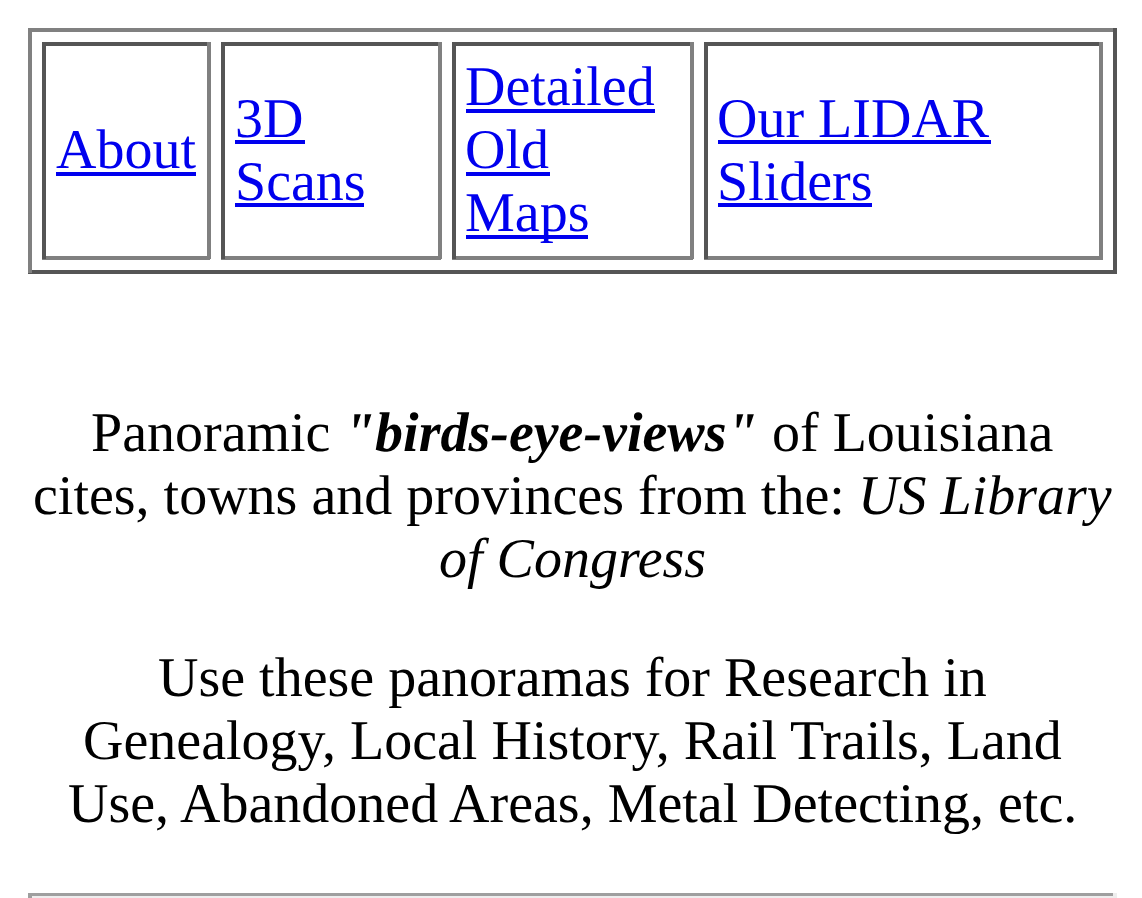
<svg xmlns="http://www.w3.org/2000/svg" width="1142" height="898">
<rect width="100%" height="100%" fill="#fff"/>
<rect x="28" y="28" width="1089" height="4" fill="#808080"/>
<rect x="1113" y="28" width="4" height="245" fill="#555"/>
<rect x="28" y="270" width="1089" height="4" fill="#555"/>
<rect x="28" y="28" width="4" height="245" fill="#808080"/>
<rect x="42" y="42" width="168" height="4" fill="#555"/>
<rect x="207" y="42" width="4" height="217" fill="#808080"/>
<rect x="42" y="256" width="168" height="4" fill="#808080"/>
<rect x="42" y="42" width="4" height="217" fill="#555"/>
<text x="56" y="168" style="font-family:Liberation Serif;font-size:56px;fill:#00e">About</text>
<rect x="56" y="172" width="140" height="4" fill="#00e"/>
<rect x="221" y="42" width="220" height="4" fill="#555"/>
<rect x="438" y="42" width="4" height="217" fill="#808080"/>
<rect x="221" y="256" width="220" height="4" fill="#808080"/>
<rect x="221" y="42" width="4" height="217" fill="#555"/>
<text x="235" y="137" style="font-family:Liberation Serif;font-size:56px;fill:#00e">3D</text>
<rect x="235" y="140" width="70" height="4" fill="#00e"/>
<text x="235" y="200" style="font-family:Liberation Serif;font-size:56px;fill:#00e">Scans</text>
<rect x="235" y="203" width="129" height="4" fill="#00e"/>
<rect x="452" y="42" width="241" height="4" fill="#555"/>
<rect x="690" y="42" width="4" height="217" fill="#808080"/>
<rect x="452" y="256" width="241" height="4" fill="#808080"/>
<rect x="452" y="42" width="4" height="217" fill="#555"/>
<text x="465" y="105" style="font-family:Liberation Serif;font-size:56px;fill:#00e">Detailed</text>
<rect x="466" y="109" width="189" height="4" fill="#00e"/>
<text x="465" y="168" style="font-family:Liberation Serif;font-size:56px;fill:#00e">Old</text>
<rect x="466" y="172" width="84" height="4" fill="#00e"/>
<rect x="466" y="235" width="122" height="4" fill="#00e"/>
<text x="465" y="231" style="font-family:Liberation Serif;font-size:56px;fill:#00e">Maps</text>
<rect x="704" y="42" width="399" height="4" fill="#555"/>
<rect x="1099" y="42" width="4" height="217" fill="#808080"/>
<rect x="704" y="256" width="399" height="4" fill="#808080"/>
<rect x="704" y="42" width="4" height="217" fill="#555"/>
<text x="717" y="137" style="font-family:Liberation Serif;font-size:56px;fill:#00e">Our LIDAR</text>
<rect x="718" y="140" width="273" height="4" fill="#00e"/>
<text x="717" y="200" style="font-family:Liberation Serif;font-size:56px;fill:#00e">Sliders</text>
<rect x="718" y="203" width="154" height="4" fill="#00e"/>
<text x="91" y="451" style="font-family:Liberation Serif;font-size:56px;fill:#000">Panoramic</text>
<text x="344" y="451" style="font-family:Liberation Serif;font-size:56px;font-weight:bold;font-style:italic;fill:#000">"birds-eye-views"</text>
<text x="772" y="451" style="font-family:Liberation Serif;font-size:56px;fill:#000">of Louisiana</text>
<text x="33" y="514" style="font-family:Liberation Serif;font-size:56px;fill:#000">cites, towns and provinces from the:</text>
<text x="858" y="514" style="font-family:Liberation Serif;font-size:56px;font-style:italic;fill:#000">US Library</text>
<text x="439" y="577" style="font-family:Liberation Serif;font-size:56px;font-style:italic;fill:#000">of Congress</text>
<text x="158" y="696" style="font-family:Liberation Serif;font-size:56px;fill:#000">Use these panoramas for Research in</text>
<text x="83" y="759" style="font-family:Liberation Serif;font-size:56px;fill:#000">Genealogy, Local History, Rail Trails, Land</text>
<text x="68" y="822" style="font-family:Liberation Serif;font-size:56px;fill:#000">Use, Abandoned Areas, Metal Detecting, etc.</text>
<rect x="28" y="893" width="1089" height="3" fill="#9f9f9f"/>
<rect x="1113" y="893" width="4" height="5" fill="#eee"/>
<rect x="28" y="896" width="1089" height="2" fill="#eee"/>
<rect x="28" y="893" width="4" height="5" fill="#9f9f9f"/>
</svg>
